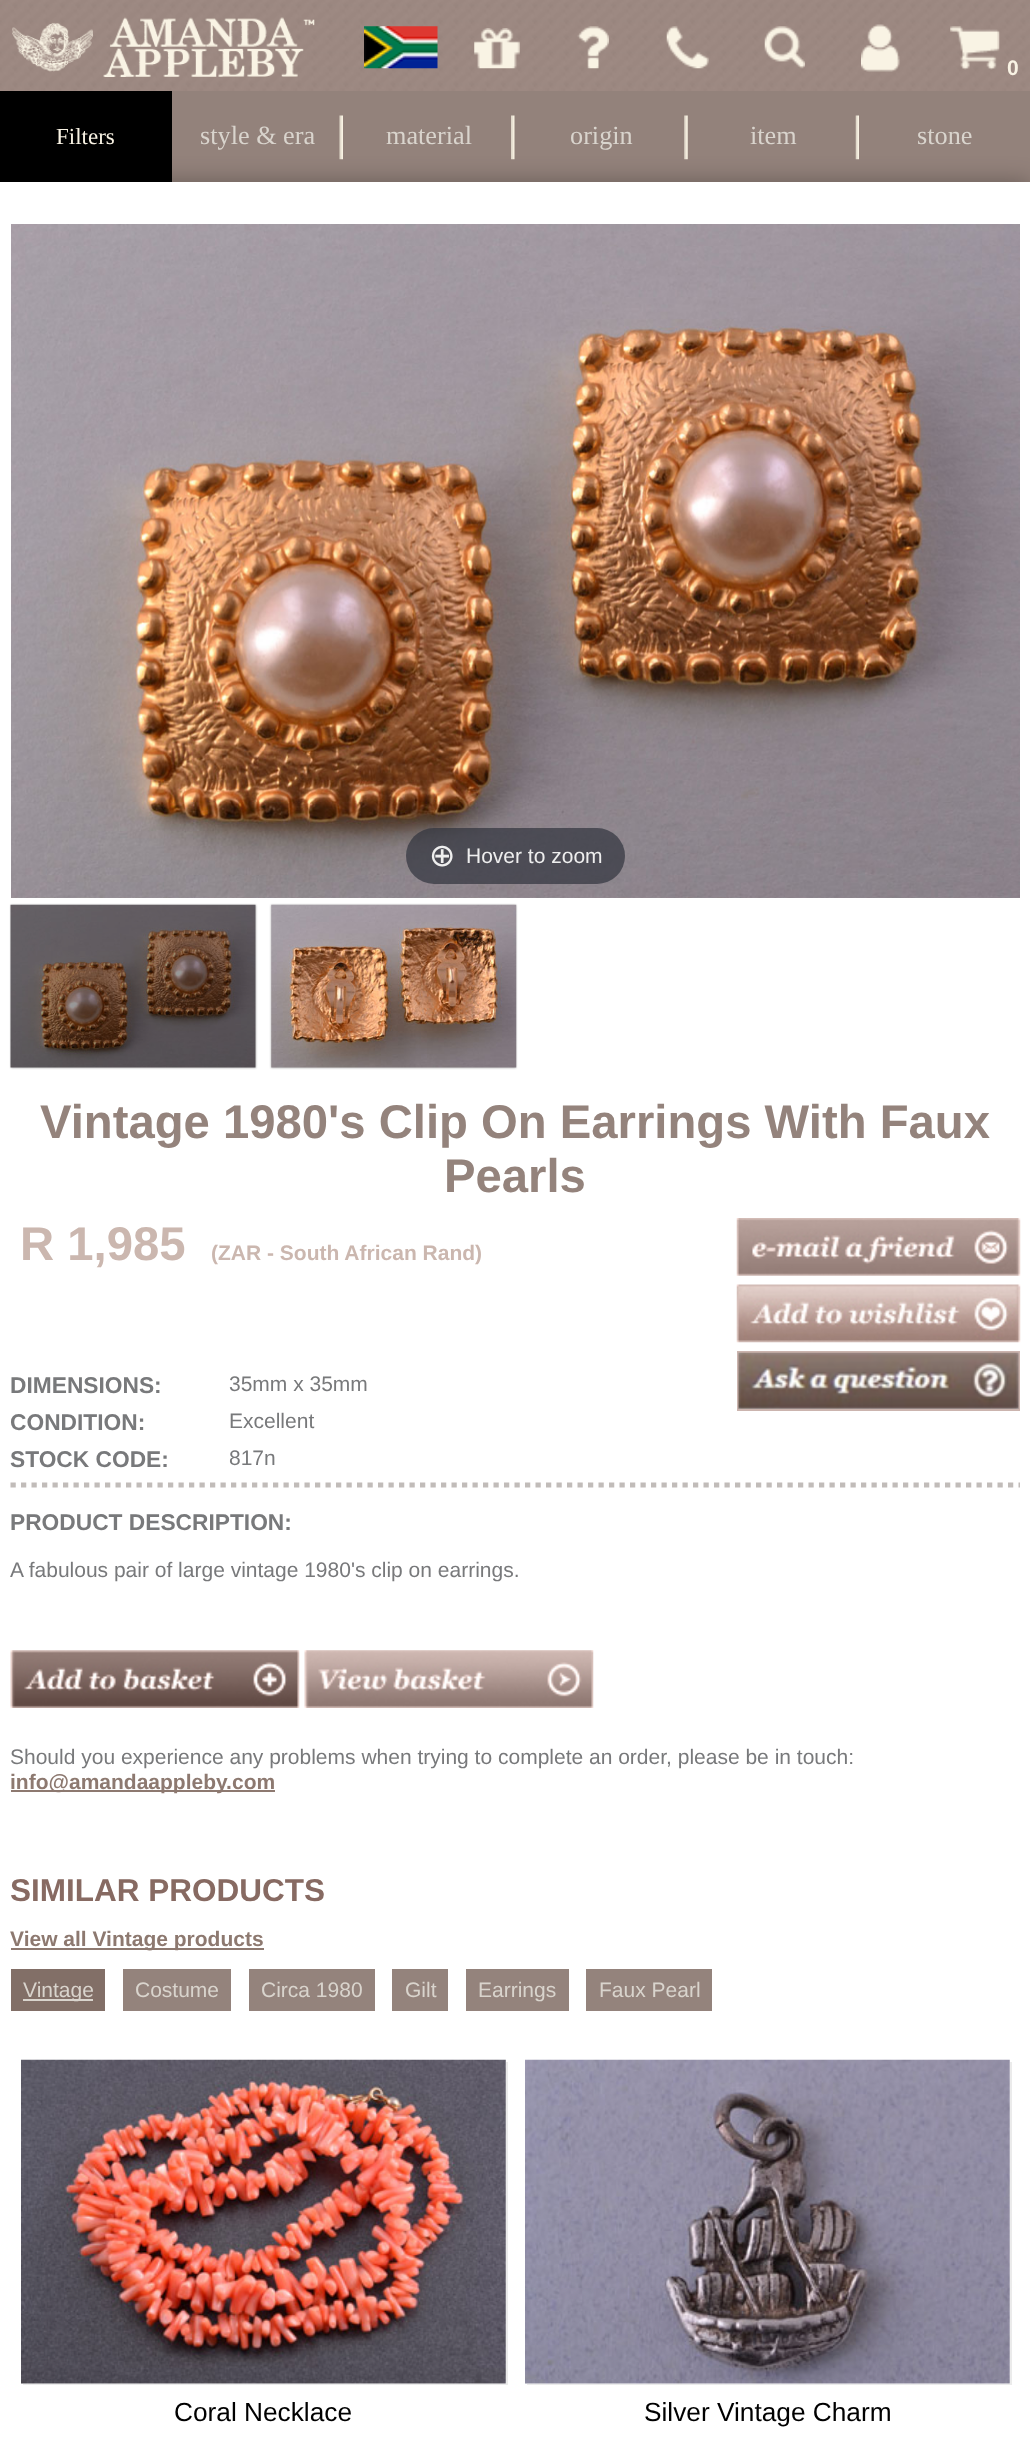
<svg xmlns="http://www.w3.org/2000/svg" width="1030" height="2441">
<rect width="100%" height="100%" fill="#000"/>
<image x="0" y="0" width="1030" height="91" href="media/1.png"/>
<image x="12" y="17" width="303" height="60" href="media/2.png"/>
<image x="364" y="26" width="74" height="43" href="media/3.png"/>
<image x="474" y="28" width="46" height="41" href="media/4.png"/>
<image x="577" y="26" width="32" height="43" href="media/5.png"/>
<image x="666" y="26" width="43" height="43" href="media/6.png"/>
<image x="764" y="26" width="41" height="43" href="media/7.png"/>
<image x="861" y="24" width="39" height="48" href="media/8.png"/>
<image x="950" y="26" width="50" height="44" href="media/9.png"/>
<text x="1007" y="75" style="font-family:Liberation Sans;font-size:21px;font-weight:bold;fill:#f9f3e4">0</text>
<text x="56" y="144" style="font-family:Liberation Serif;font-size:23px;fill:#f9f3e4">Filters</text>
<rect x="172" y="91" width="858" height="91" fill="#93827b"/>
<image x="339" y="115" width="4" height="45" href="media/10.png"/>
<text x="200" y="144" style="font-family:Liberation Serif;font-size:26.25px;fill:#d9d4cd">style &amp; era</text>
<image x="511" y="115" width="4" height="45" href="media/11.png"/>
<text x="386" y="144" style="font-family:Liberation Serif;font-size:26.25px;fill:#d9d4cd">material</text>
<image x="684" y="115" width="4" height="45" href="media/12.png"/>
<text x="570" y="144" style="font-family:Liberation Serif;font-size:26.25px;fill:#d9d4cd">origin</text>
<image x="855" y="115" width="4" height="45" href="media/13.png"/>
<text x="750" y="144" style="font-family:Liberation Serif;font-size:26.25px;fill:#d9d4cd">item</text>
<text x="917" y="144" style="font-family:Liberation Serif;font-size:26.25px;fill:#d9d4cd">stone</text>
<rect y="182" width="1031" height="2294" fill="#0000004d" filter="blur(11.5px)"/>
<rect y="182" width="1030" height="2259" fill="#fff"/>
<image x="11" y="224" width="1009" height="674" href="media/14.png"/>
<rect x="406" y="828" width="219" height="56" rx="28" fill="#31333db3"/>
<text x="429" y="866" style="font-family:DejaVu Sans;font-size:31.5px;fill:#eee">⊕</text>
<text x="466" y="863" style="font-family:Liberation Sans;font-size:21px;fill:#eee">Hover to zoom</text>
<rect x="11" y="905" width="245" height="163" fill="#0000004d" filter="blur(1px)"/>
<image x="10" y="904" width="246" height="164" href="media/15.png"/>
<rect x="271" y="905" width="245" height="163" fill="#0000004d" filter="blur(1px)"/>
<image x="271" y="904" width="246" height="164" href="media/16.png"/>
<text x="40" y="1138" style="font-family:Liberation Sans;font-size:47.25px;font-weight:bold;fill:#94837c">Vintage 1980's Clip On Earrings With Faux</text>
<text x="444" y="1192" style="font-family:Liberation Sans;font-size:47.25px;font-weight:bold;fill:#94837c">Pearls</text>
<text x="20" y="1260" style="font-family:Liberation Sans;font-size:47.25px;font-weight:bold;fill:#cbb7af">R 1,985</text>
<text x="211" y="1260" style="font-family:Liberation Sans;font-size:21px;font-weight:bold;fill:#cbb7af">(ZAR - South African Rand)</text>
<image x="736" y="1218" width="285" height="58" href="media/17.png"/>
<image x="736" y="1284" width="285" height="59" href="media/18.png"/>
<text x="10" y="1393" style="font-family:Liberation Sans;font-size:22.75px;font-weight:bold;fill:#78797b">DIMENSIONS:</text>
<text x="229" y="1391" style="font-family:Liberation Sans;font-size:21px;fill:#78797b">35mm x 35mm</text>
<rect x="738" y="1352" width="281" height="58" fill="none" stroke="#cbb4ae" stroke-width="2"/>
<image x="738" y="1352" width="281" height="57" href="media/19.png"/>
<text x="10" y="1430" style="font-family:Liberation Sans;font-size:22.75px;font-weight:bold;fill:#78797b">CONDITION:</text>
<text x="229" y="1428" style="font-family:Liberation Sans;font-size:21px;fill:#78797b">Excellent</text>
<text x="10" y="1467" style="font-family:Liberation Sans;font-size:22.75px;font-weight:bold;fill:#78797b">STOCK CODE:</text>
<text x="229" y="1465" style="font-family:Liberation Sans;font-size:21px;fill:#78797b">817n</text>
<path d="M10.5 1485h1009.5" fill="none" stroke="#c1bcb9" stroke-width="5.2" stroke-dasharray="5.25 5.25"/>
<text x="10" y="1530" style="font-family:Liberation Sans;font-size:22.75px;font-weight:bold;fill:#78797b">PRODUCT DESCRIPTION:</text>
<text x="10" y="1577" style="font-family:Liberation Sans;font-size:21px;fill:#78797b">A fabulous pair of large vintage 1980's clip on earrings.</text>
<image x="10" y="1650" width="290" height="58" href="media/20.png"/>
<image x="304" y="1650" width="290" height="58" href="media/21.png"/>
<text x="10" y="1764" style="font-family:Liberation Sans;font-size:21px;fill:#78797b">Should you experience any problems when trying to complete an order, please be in touch:</text>
<rect x="11" y="1790" width="264" height="2" fill="#8d7970"/>
<text x="10" y="1789" style="font-family:Liberation Sans;font-size:21px;font-weight:bold;fill:#8d7970">info@amandaappleby.com</text>
<text x="10" y="1901" style="font-family:Liberation Sans;font-size:31.5px;font-weight:bold;fill:#876a62">SIMILAR PRODUCTS</text>
<rect x="11" y="1948" width="253" height="2" fill="#8d7970"/>
<text x="10" y="1946" style="font-family:Liberation Sans;font-size:21px;font-weight:bold;fill:#8d7970">View all Vintage products</text>
<rect x="11" y="1969" width="94" height="42" fill="#826f67"/>
<rect x="23" y="1999" width="70" height="2" fill="#d9d4cd"/>
<text x="23" y="1997" style="font-family:Liberation Sans;font-size:21px;fill:#d9d4cd">Vintage</text>
<rect x="123" y="1969" width="108" height="42" fill="#94837c"/>
<text x="135" y="1997" style="font-family:Liberation Sans;font-size:21px;fill:#d9d4cd">Costume</text>
<rect x="249" y="1969" width="126" height="42" fill="#94837c"/>
<text x="261" y="1997" style="font-family:Liberation Sans;font-size:21px;fill:#d9d4cd">Circa 1980</text>
<rect x="392" y="1969" width="56" height="42" fill="#94837c"/>
<text x="405" y="1997" style="font-family:Liberation Sans;font-size:21px;fill:#d9d4cd">Gilt</text>
<rect x="466" y="1969" width="103" height="42" fill="#94837c"/>
<text x="478" y="1997" style="font-family:Liberation Sans;font-size:21px;fill:#d9d4cd">Earrings</text>
<rect x="586" y="1969" width="126" height="42" fill="#94837c"/>
<text x="599" y="1997" style="font-family:Liberation Sans;font-size:21px;fill:#d9d4cd">Faux Pearl</text>
<path d="M23 2384v1h485v-323h-2v322z" fill="#ebebeb"/>
<image x="21" y="2059" width="485" height="325" href="media/22.png"/>
<text x="174" y="2421" style="font-family:Liberation Sans;font-size:26.25px;fill:#000">Coral Necklace</text>
<path d="M527 2384v1h485v-323h-2v322z" fill="#ebebeb"/>
<image x="525" y="2059" width="485" height="325" href="media/23.png"/>
<text x="644" y="2421" style="font-family:Liberation Sans;font-size:26.25px;fill:#000">Silver Vintage Charm</text>
</svg>
